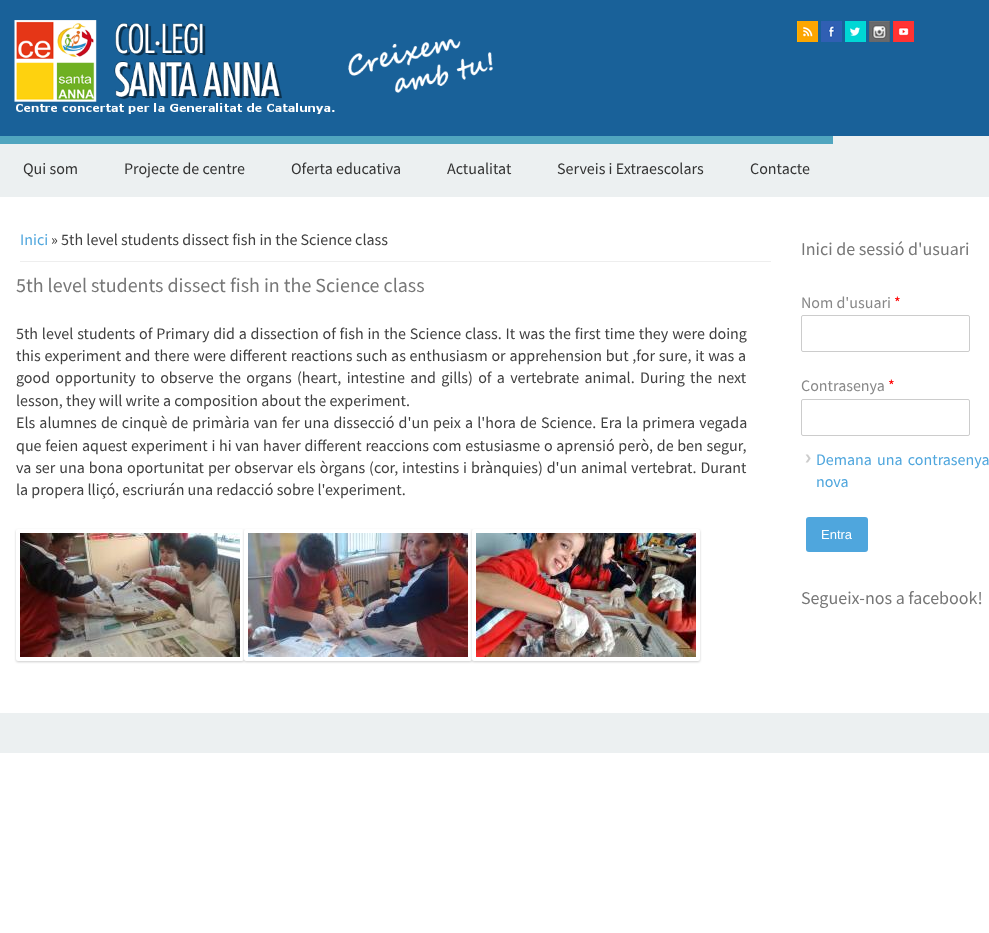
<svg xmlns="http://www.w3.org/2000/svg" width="989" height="933">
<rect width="100%" height="100%" fill="#fff"/>
<rect width="989" height="136" fill="#196199"/>
<image x="14" y="20" width="479" height="94" href="media/1.png"/>
<image x="797" y="21" width="21" height="21" href="media/2.png"/>
<image x="821" y="21" width="21" height="21" href="media/3.png"/>
<image x="845" y="21" width="21" height="21" href="media/4.png"/>
<image x="869" y="21" width="21" height="21" href="media/5.png"/>
<image x="893" y="21" width="21" height="21" href="media/6.png"/>
<rect y="136" width="989" height="61" fill="#ecf0f1"/>
<rect y="136" width="833" height="8" fill="#50a5bf"/>
<text x="23" y="174" style="font-family:Source Sans Pro;font-size:16px;fill:#333">Qui som</text>
<text x="124" y="174" style="font-family:Source Sans Pro;font-size:16px;fill:#333">Projecte de centre</text>
<text x="291" y="174" style="font-family:Source Sans Pro;font-size:16px;fill:#333">Oferta educativa</text>
<text x="447" y="174" style="font-family:Source Sans Pro;font-size:16px;fill:#333">Actualitat</text>
<text x="557" y="174" style="font-family:Source Sans Pro;font-size:16px;fill:#333">Serveis i Extraescolars</text>
<text x="750" y="174" style="font-family:Source Sans Pro;font-size:16px;fill:#333">Contacte</text>
<rect x="20" y="261" width="751" height="1" fill="#eee"/>
<text x="20" y="245" style="font-family:Source Sans Pro;font-size:16px;fill:#4fa6dd">Inici</text>
<text x="51" y="245" style="font-family:Source Sans Pro;font-size:16px;fill:#404040">» 5th level students dissect fish in the Science class</text>
<text x="16" y="292" style="font-family:Source Sans Pro;font-size:20px;fill:#777">5th level students dissect fish in the Science class</text>
<text x="16" y="339" word-spacing="0.6" style="font-family:Source Sans Pro;font-size:16px;fill:#404040">5th level students of Primary did a dissection of fish in the Science class. It was the first time they were doing</text>
<text x="16" y="361" word-spacing="0.5" style="font-family:Source Sans Pro;font-size:16px;fill:#404040">this experiment and there were different reactions</text>
<text x="356" y="361" word-spacing="0.5" style="font-family:Source Sans Pro;font-size:16px;fill:#404040">such as enthusiasm or apprehension but ,for sure, it was a</text>
<text x="16" y="383" word-spacing="2.1" style="font-family:Source Sans Pro;font-size:16px;fill:#404040">good opportunity to observe the organs (heart, intestine and gills) of a vertebrate animal. During the next</text>
<text x="16" y="406" style="font-family:Source Sans Pro;font-size:16px;fill:#404040">lesson, they will write a composition about the experiment.</text>
<text x="16" y="428" word-spacing="0.9" style="font-family:Source Sans Pro;font-size:16px;fill:#404040">Els alumnes de cinquè de primària van fer una dissecció d'un peix a l'hora de Science. Era la primera vegada</text>
<text x="16" y="451" word-spacing="0.5" style="font-family:Source Sans Pro;font-size:16px;fill:#404040">que feien aquest experiment i hi van haver different reaccions com estusiasme o aprensió però, de ben segur,</text>
<text x="16" y="473" word-spacing="0.75" style="font-family:Source Sans Pro;font-size:16px;fill:#404040">va ser una bona oportunitat per observar els òrgans (cor, intestins i brànquies) d'un animal vertebrat. Durant</text>
<text x="16" y="495" style="font-family:Source Sans Pro;font-size:16px;fill:#404040">la propera lliçó, escriurán una redacció sobre l'experiment.</text>
<rect x="16" y="530" width="228" height="132" rx="2" fill="#00000033" filter="blur(1px)"/>
<rect x="16" y="529" width="228" height="132" rx="2" fill="#fff"/>
<image x="20" y="533" width="220" height="124" href="media/7.png"/>
<rect x="244" y="530" width="228" height="132" rx="2" fill="#00000033" filter="blur(1px)"/>
<rect x="244" y="529" width="228" height="132" rx="2" fill="#fff"/>
<image x="248" y="533" width="220" height="124" href="media/8.png"/>
<rect x="472" y="530" width="228" height="132" rx="2" fill="#00000033" filter="blur(1px)"/>
<rect x="472" y="529" width="228" height="132" rx="2" fill="#fff"/>
<image x="476" y="533" width="220" height="124" href="media/9.png"/>
<text x="801" y="255" style="font-family:Source Sans Pro;font-size:18px;fill:#777">Inici de sessió d'usuari</text>
<text x="801" y="308" style="font-family:Source Sans Pro;font-size:16px;fill:#888">Nom d'usuari</text>
<text x="894" y="308" style="font-family:Source Sans Pro;font-size:16px;fill:#f00">*</text>
<rect x="801.5" y="315.5" width="168" height="36" rx="1.5" fill="none" stroke="#ccc"/>
<text x="801" y="391" style="font-family:Source Sans Pro;font-size:16px;fill:#888">Contrasenya</text>
<text x="888" y="391" style="font-family:Source Sans Pro;font-size:16px;fill:#f00">*</text>
<rect x="801.5" y="399.5" width="168" height="36" rx="1.5" fill="none" stroke="#ccc"/>
<image x="805" y="454" width="6" height="9" href="media/10.png"/>
<text x="816" y="465" word-spacing="2" style="font-family:Source Sans Pro;font-size:16px;fill:#4fa6dd">Demana una contrasenya</text>
<text x="816" y="487" style="font-family:Source Sans Pro;font-size:16px;fill:#4fa6dd">nova</text>
<rect x="806" y="517" width="62" height="35" rx="3" fill="#4fa6dd"/>
<text x="821" y="539" style="font-family:Liberation Sans;font-size:13px;fill:#fff">Entra</text>
<text x="801" y="604" style="font-family:Source Sans Pro;font-size:18px;fill:#777">Segueix-nos a facebook!</text>
<rect y="713" width="989" height="40" fill="#ecf0f1"/>
</svg>
